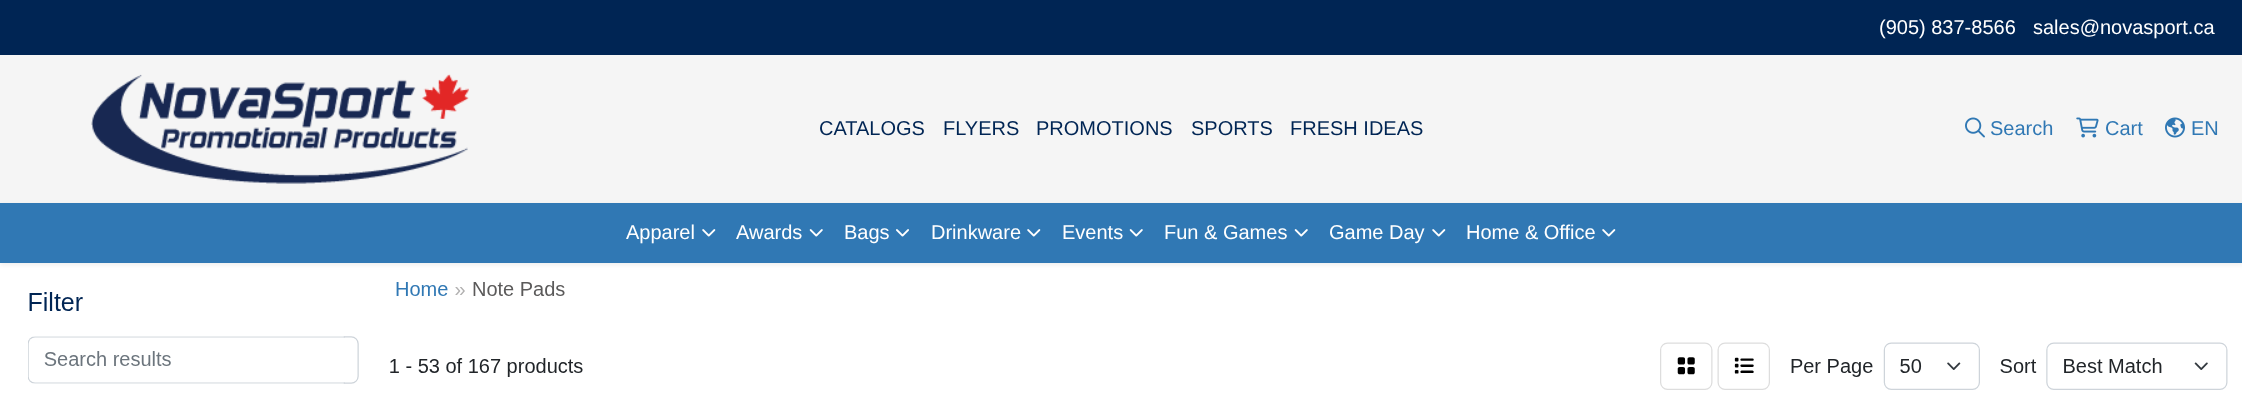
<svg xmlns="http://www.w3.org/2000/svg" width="2242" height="394">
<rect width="100%" height="100%" fill="#fff"/>
<rect y="55" width="2242" height="148" fill="#f5f5f5"/>
<rect width="2242" height="55" fill="#002554"/>
<text x="1879" y="34" style="font-family:Liberation Sans;font-size:20px;fill:#fff">(905) 837-8566</text>
<text x="2033" y="34" style="font-family:Liberation Sans;font-size:20px;fill:#fff">sales@novasport.ca</text>
<image x="91" y="74" width="378" height="110" href="media/1.png"/>
<text x="819" y="135" style="font-family:Liberation Sans;font-size:20px;fill:#002554">CATALOGS</text>
<text x="943" y="135" style="font-family:Liberation Sans;font-size:20px;fill:#002554">FLYERS</text>
<text x="1036" y="135" style="font-family:Liberation Sans;font-size:20px;fill:#002554">PROMOTIONS</text>
<text x="1191" y="135" style="font-family:Liberation Sans;font-size:20px;fill:#002554">SPORTS</text>
<text x="1290" y="135" style="font-family:Liberation Sans;font-size:20px;fill:#002554">FRESH IDEAS</text>
<image x="1965" y="117" width="20" height="21" href="media/2.png"/>
<text x="1990" y="135" style="font-family:Liberation Sans;font-size:20px;fill:#3078b4">Search</text>
<image x="2076" y="117" width="23" height="21" href="media/3.png"/>
<text x="2105" y="135" style="font-family:Liberation Sans;font-size:20px;fill:#3078b4">Cart</text>
<image x="2165" y="117" width="20" height="21" href="media/4.png"/>
<text x="2191" y="135" style="font-family:Liberation Sans;font-size:20px;fill:#3078b4">EN</text>
<rect y="205" width="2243" height="60" fill="#00000012" filter="blur(2.5px)"/>
<rect y="203" width="2242" height="60" fill="#3078b4"/>
<text x="626" y="239" style="font-family:Liberation Sans;font-size:20px;fill:#fff">Apparel</text>
<image x="702" y="229" width="14" height="8" href="media/5.png"/>
<text x="736" y="239" style="font-family:Liberation Sans;font-size:20px;fill:#fff">Awards</text>
<image x="809" y="229" width="14" height="8" href="media/6.png"/>
<text x="844" y="239" style="font-family:Liberation Sans;font-size:20px;fill:#fff">Bags</text>
<image x="896" y="229" width="13" height="8" href="media/7.png"/>
<text x="931" y="239" style="font-family:Liberation Sans;font-size:20px;fill:#fff">Drinkware</text>
<image x="1027" y="229" width="14" height="8" href="media/5.png"/>
<text x="1062" y="239" style="font-family:Liberation Sans;font-size:20px;fill:#fff">Events</text>
<image x="1129" y="229" width="14" height="8" href="media/6.png"/>
<text x="1164" y="239" style="font-family:Liberation Sans;font-size:20px;fill:#fff">Fun &amp; Games</text>
<image x="1294" y="229" width="14" height="8" href="media/6.png"/>
<text x="1329" y="239" style="font-family:Liberation Sans;font-size:20px;fill:#fff">Game Day</text>
<image x="1432" y="229" width="14" height="8" href="media/5.png"/>
<text x="1466" y="239" style="font-family:Liberation Sans;font-size:20px;fill:#fff">Home &amp; Office</text>
<image x="1602" y="229" width="14" height="8" href="media/5.png"/>
<image x="28" y="281" width="2200" height="109" href="media/8.png"/>
</svg>
